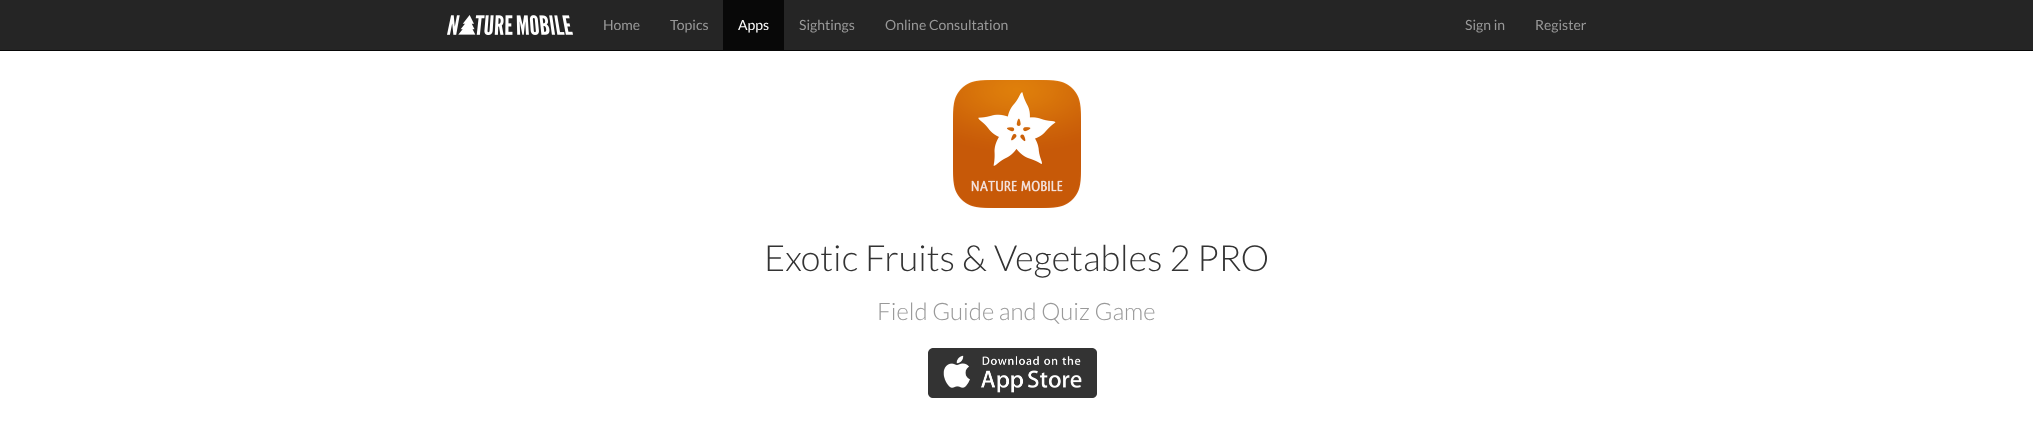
<svg xmlns="http://www.w3.org/2000/svg" width="2033" height="422">
<rect width="100%" height="100%" fill="#fff"/>
<rect width="2033" height="50" fill="#252525"/>
<rect y="50" width="2033" height="1" fill="#080808"/>
<image x="447" y="15" width="126" height="20" href="media/1.png"/>
<text x="603" y="30" style="font-family:Lato;font-size:14px;fill:#999">Home</text>
<text x="670" y="30" style="font-family:Lato;font-size:14px;fill:#999">Topics</text>
<rect x="723" width="61" height="50" fill="#080808"/>
<text x="738" y="30" style="font-family:Lato;font-size:14px;fill:#fff">Apps</text>
<text x="799" y="30" style="font-family:Lato;font-size:14px;fill:#999">Sightings</text>
<text x="885" y="30" style="font-family:Lato;font-size:14px;fill:#999">Online Consultation</text>
<text x="1465" y="30" style="font-family:Lato;font-size:14px;fill:#999">Sign in</text>
<text x="1535" y="30" style="font-family:Lato;font-size:14px;fill:#999">Register</text>
<image x="953" y="80" width="128" height="128" href="media/2.png"/>
<text x="764" y="271" style="font-family:Lato;font-size:36px;font-weight:300;fill:#333">Exotic Fruits &amp; Vegetables 2 PRO</text>
<text x="877" y="320" style="font-family:Lato;font-size:24px;font-weight:300;fill:#999">Field Guide and Quiz Game</text>
<image x="928" y="348" width="169" height="50" href="media/3.png"/>
</svg>
